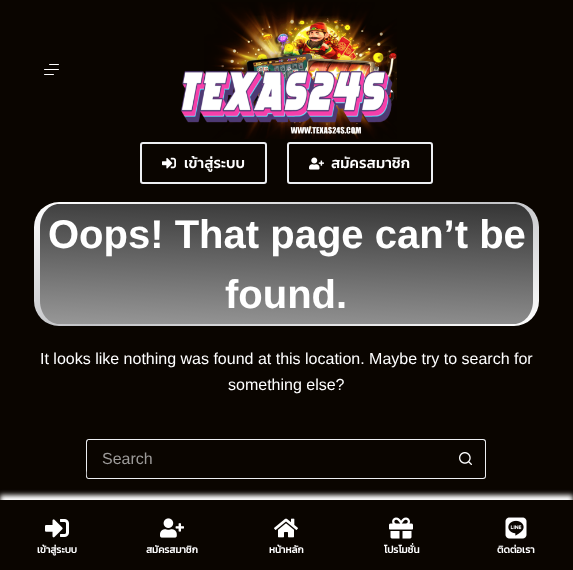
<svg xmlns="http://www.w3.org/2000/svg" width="573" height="570">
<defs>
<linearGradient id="g1" gradientUnits="userSpaceOnUse" x1="248" y1="137" x2="325" y2="391"><stop offset="0" stop-color="#fff"/><stop offset="0.5" stop-color="#c3c4c7"/><stop offset="1" stop-color="#fff"/></linearGradient>
<linearGradient id="g2" gradientUnits="userSpaceOnUse" x1="289" y1="193" x2="284" y2="335"><stop offset="0" stop-color="#333"/><stop offset="1" stop-color="#999"/></linearGradient>
</defs>
<rect width="100%" height="100%" fill="#0a0500"/>
<rect x="49" y="64" width="10" height="1" rx="0.5" fill="#fff"/>
<rect x="44" y="69" width="15" height="1" rx="0.5" fill="#fff"/>
<rect x="44" y="74" width="10" height="1" rx="0.5" fill="#fff"/>
<image x="180" y="2" width="217" height="137" href="media/1.png"/>
<rect x="141" y="143" width="125" height="40" rx="2" fill="none" stroke="#edeff2" stroke-width="2"/>
<image x="162" y="157" width="14" height="12" href="media/2.png"/>
<text x="184" y="168" style="font-family:Kanit;font-size:15px;font-weight:500;fill:#fff">เข้าสู่ระบบ</text>
<rect x="288" y="143" width="144" height="40" rx="2" fill="none" stroke="#edeff2" stroke-width="2"/>
<image x="309" y="157" width="15" height="13" href="media/3.png"/>
<text x="331" y="168" style="font-family:Kanit;font-size:15px;font-weight:500;fill:#fff">สมัครสมาชิก</text>
<rect x="34" y="202" width="505" height="124" rx="25" fill="url(#g1)"/>
<path d="M59 204h455c10 0 19 10 19 23v74c0 13-9 23-19 23h-455c-10 0-19-10-19-23v-74c0-13 9-23 19-23z" fill="url(#g2)"/>
<text x="48" y="248" style="font-family:Liberation Sans;font-size:40px;font-weight:bold;fill:#fff">Oops! That page can’t be</text>
<text x="225" y="308" style="font-family:Liberation Sans;font-size:40px;font-weight:bold;fill:#fff">found.</text>
<text x="40" y="364" style="font-family:Liberation Sans;font-size:16px;fill:#fff">It looks like nothing was found at this location. Maybe try to search for</text>
<text x="228" y="390" style="font-family:Liberation Sans;font-size:16px;fill:#fff">something else?</text>
<path d="M89 439h357v40h-357c-2 0-3-1-3-3v-34c0-2 1-3 3-3zm0 1h357v38h-358c-2-2-1-7-1-8v-28l1-2z" fill="#edeff2" fill-rule="evenodd"/>
<text x="102" y="464" style="font-family:Liberation Sans;font-size:16px;fill:#9d9b99">Search</text>
<path d="M446 439h37c2 0 3 1 3 3v34c0 2-1 3-3 3h-37zm0 1h37c1 0 2 1 2 2v34c0 1-1 2-2 2h-37z" fill="#edeff2" fill-rule="evenodd"/>
<image x="459" y="452" width="13" height="13" href="media/4.png"/>
<rect y="495" width="573" height="70" fill="#fff" filter="blur(2.5px)"/>
<rect y="500" width="573" height="70" fill="#0a0500"/>
<image x="45" y="519" width="24" height="19" href="media/5.png"/>
<text x="37" y="553" style="font-family:Kanit;font-size:10px;font-weight:bold;fill:#fff">เข้าสู่ระบบ</text>
<image x="160" y="518" width="24" height="20" href="media/6.png"/>
<text x="146" y="553" style="font-family:Kanit;font-size:10px;font-weight:bold;fill:#fff">สมัครสมาชิก</text>
<image x="274" y="518" width="24" height="20" href="media/7.png"/>
<text x="269" y="553" style="font-family:Kanit;font-size:10px;font-weight:bold;fill:#fff">หน้าหลัก</text>
<image x="389" y="517" width="24" height="22" href="media/8.png"/>
<text x="384" y="553" style="font-family:Kanit;font-size:10px;font-weight:bold;fill:#fff">โปรโมชั่น</text>
<image x="505" y="517" width="22" height="22" href="media/9.png"/>
<text x="497" y="553" style="font-family:Kanit;font-size:10px;font-weight:bold;fill:#fff">ติดต่อเรา</text>
</svg>
